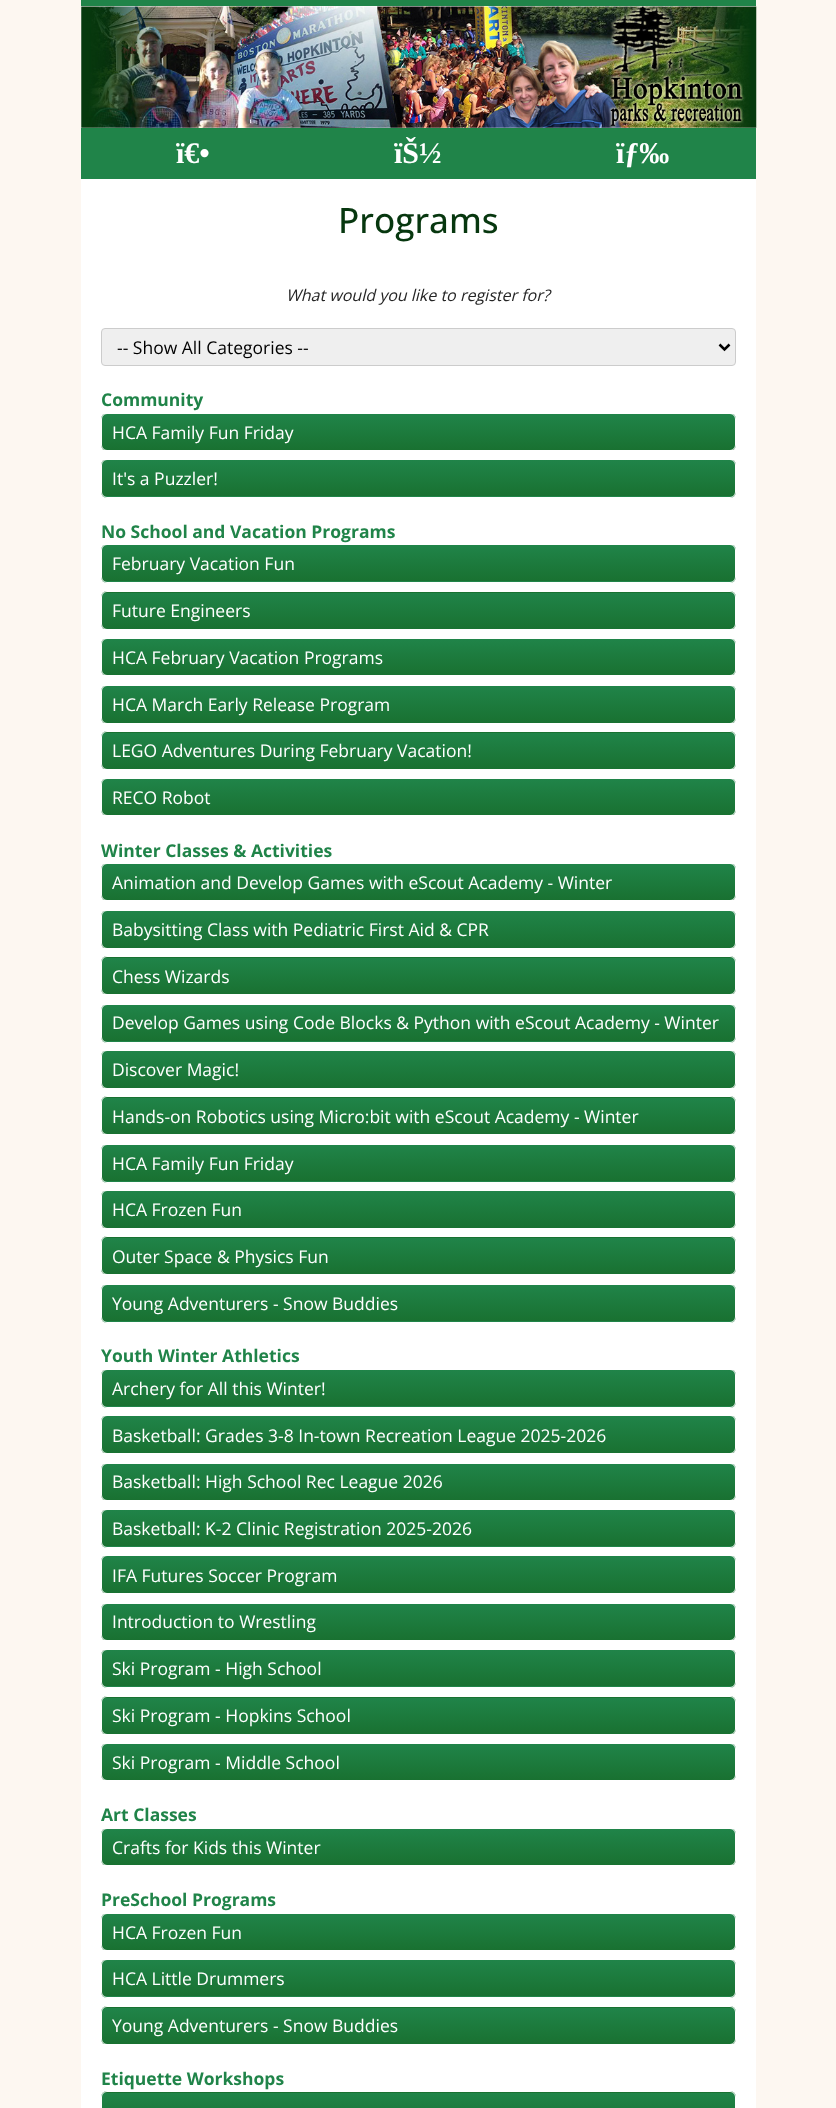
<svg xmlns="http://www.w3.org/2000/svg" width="836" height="2108">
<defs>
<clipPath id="clip1"><rect x="101" y="413" width="635" height="38" rx="6"/></clipPath>
<linearGradient id="g1" gradientUnits="userSpaceOnUse" x1="419" y1="414" x2="419" y2="450"><stop offset="0" stop-color="#208449"/><stop offset="1" stop-color="#197131"/></linearGradient>
<clipPath id="clip2"><rect x="101" y="459" width="635" height="39" rx="6"/></clipPath>
<linearGradient id="g2" gradientUnits="userSpaceOnUse" x1="419" y1="460" x2="419" y2="496"><stop offset="0" stop-color="#208449"/><stop offset="1" stop-color="#197131"/></linearGradient>
<linearGradient id="g3" gradientUnits="userSpaceOnUse" x1="419" y1="496" x2="419" y2="533"><stop offset="0" stop-color="#208449"/><stop offset="1" stop-color="#197131"/></linearGradient>
<clipPath id="clip3"><rect x="101" y="544" width="635" height="39" rx="6"/></clipPath>
<linearGradient id="g4" gradientUnits="userSpaceOnUse" x1="419" y1="545" x2="419" y2="581"><stop offset="0" stop-color="#208449"/><stop offset="1" stop-color="#197131"/></linearGradient>
<linearGradient id="g5" gradientUnits="userSpaceOnUse" x1="419" y1="581" x2="419" y2="618"><stop offset="0" stop-color="#208449"/><stop offset="1" stop-color="#197131"/></linearGradient>
<clipPath id="clip4"><rect x="101" y="591" width="635" height="39" rx="6"/></clipPath>
<linearGradient id="g6" gradientUnits="userSpaceOnUse" x1="419" y1="556" x2="419" y2="593"><stop offset="0" stop-color="#208449"/><stop offset="1" stop-color="#197131"/></linearGradient>
<linearGradient id="g7" gradientUnits="userSpaceOnUse" x1="419" y1="592" x2="419" y2="629"><stop offset="0" stop-color="#208449"/><stop offset="1" stop-color="#197131"/></linearGradient>
<clipPath id="clip5"><rect x="101" y="638" width="635" height="38" rx="6"/></clipPath>
<linearGradient id="g8" gradientUnits="userSpaceOnUse" x1="419" y1="639" x2="419" y2="675"><stop offset="0" stop-color="#208449"/><stop offset="1" stop-color="#197131"/></linearGradient>
<clipPath id="clip6"><rect x="101" y="685" width="635" height="39" rx="6"/></clipPath>
<linearGradient id="g9" gradientUnits="userSpaceOnUse" x1="419" y1="686" x2="419" y2="723"><stop offset="0" stop-color="#208449"/><stop offset="1" stop-color="#197131"/></linearGradient>
<clipPath id="clip7"><rect x="101" y="731" width="635" height="39" rx="6"/></clipPath>
<linearGradient id="g10" gradientUnits="userSpaceOnUse" x1="419" y1="696" x2="419" y2="733"><stop offset="0" stop-color="#208449"/><stop offset="1" stop-color="#197131"/></linearGradient>
<linearGradient id="g11" gradientUnits="userSpaceOnUse" x1="419" y1="733" x2="419" y2="769"><stop offset="0" stop-color="#208449"/><stop offset="1" stop-color="#197131"/></linearGradient>
<clipPath id="clip8"><rect x="101" y="778" width="635" height="38" rx="6"/></clipPath>
<linearGradient id="g12" gradientUnits="userSpaceOnUse" x1="419" y1="779" x2="419" y2="815"><stop offset="0" stop-color="#208449"/><stop offset="1" stop-color="#197131"/></linearGradient>
<clipPath id="clip9"><rect x="101" y="863" width="635" height="38" rx="6"/></clipPath>
<linearGradient id="g13" gradientUnits="userSpaceOnUse" x1="419" y1="864" x2="419" y2="900"><stop offset="0" stop-color="#208449"/><stop offset="1" stop-color="#197131"/></linearGradient>
<clipPath id="clip10"><rect x="101" y="910" width="635" height="39" rx="6"/></clipPath>
<linearGradient id="g14" gradientUnits="userSpaceOnUse" x1="419" y1="911" x2="419" y2="948"><stop offset="0" stop-color="#208449"/><stop offset="1" stop-color="#197131"/></linearGradient>
<clipPath id="clip11"><rect x="101" y="956" width="635" height="39" rx="6"/></clipPath>
<linearGradient id="g15" gradientUnits="userSpaceOnUse" x1="419" y1="921" x2="419" y2="958"><stop offset="0" stop-color="#208449"/><stop offset="1" stop-color="#197131"/></linearGradient>
<linearGradient id="g16" gradientUnits="userSpaceOnUse" x1="419" y1="958" x2="419" y2="994"><stop offset="0" stop-color="#208449"/><stop offset="1" stop-color="#197131"/></linearGradient>
<clipPath id="clip12"><rect x="101" y="1004" width="635" height="39" rx="6"/></clipPath>
<linearGradient id="g17" gradientUnits="userSpaceOnUse" x1="419" y1="1005" x2="419" y2="1041"><stop offset="0" stop-color="#208449"/><stop offset="1" stop-color="#197131"/></linearGradient>
<linearGradient id="g18" gradientUnits="userSpaceOnUse" x1="419" y1="1041" x2="419" y2="1078"><stop offset="0" stop-color="#208449"/><stop offset="1" stop-color="#197131"/></linearGradient>
<clipPath id="clip13"><rect x="101" y="1050" width="635" height="39" rx="6"/></clipPath>
<linearGradient id="g19" gradientUnits="userSpaceOnUse" x1="419" y1="1051" x2="419" y2="1088"><stop offset="0" stop-color="#208449"/><stop offset="1" stop-color="#197131"/></linearGradient>
<clipPath id="clip14"><rect x="101" y="1096" width="635" height="39" rx="6"/></clipPath>
<linearGradient id="g20" gradientUnits="userSpaceOnUse" x1="419" y1="1061" x2="419" y2="1098"><stop offset="0" stop-color="#208449"/><stop offset="1" stop-color="#197131"/></linearGradient>
<linearGradient id="g21" gradientUnits="userSpaceOnUse" x1="419" y1="1098" x2="419" y2="1134"><stop offset="0" stop-color="#208449"/><stop offset="1" stop-color="#197131"/></linearGradient>
<clipPath id="clip15"><rect x="101" y="1144" width="635" height="39" rx="6"/></clipPath>
<linearGradient id="g22" gradientUnits="userSpaceOnUse" x1="419" y1="1145" x2="419" y2="1181"><stop offset="0" stop-color="#208449"/><stop offset="1" stop-color="#197131"/></linearGradient>
<linearGradient id="g23" gradientUnits="userSpaceOnUse" x1="419" y1="1181" x2="419" y2="1218"><stop offset="0" stop-color="#208449"/><stop offset="1" stop-color="#197131"/></linearGradient>
<clipPath id="clip16"><rect x="101" y="1190" width="635" height="39" rx="6"/></clipPath>
<linearGradient id="g24" gradientUnits="userSpaceOnUse" x1="419" y1="1191" x2="419" y2="1228"><stop offset="0" stop-color="#208449"/><stop offset="1" stop-color="#197131"/></linearGradient>
<clipPath id="clip17"><rect x="101" y="1236" width="635" height="39" rx="6"/></clipPath>
<linearGradient id="g25" gradientUnits="userSpaceOnUse" x1="419" y1="1201" x2="419" y2="1238"><stop offset="0" stop-color="#208449"/><stop offset="1" stop-color="#197131"/></linearGradient>
<linearGradient id="g26" gradientUnits="userSpaceOnUse" x1="419" y1="1238" x2="419" y2="1274"><stop offset="0" stop-color="#208449"/><stop offset="1" stop-color="#197131"/></linearGradient>
<clipPath id="clip18"><rect x="101" y="1284" width="635" height="39" rx="6"/></clipPath>
<linearGradient id="g27" gradientUnits="userSpaceOnUse" x1="419" y1="1285" x2="419" y2="1321"><stop offset="0" stop-color="#208449"/><stop offset="1" stop-color="#197131"/></linearGradient>
<linearGradient id="g28" gradientUnits="userSpaceOnUse" x1="419" y1="1321" x2="419" y2="1358"><stop offset="0" stop-color="#208449"/><stop offset="1" stop-color="#197131"/></linearGradient>
<clipPath id="clip19"><rect x="101" y="1369" width="635" height="39" rx="6"/></clipPath>
<linearGradient id="g29" gradientUnits="userSpaceOnUse" x1="419" y1="1370" x2="419" y2="1406"><stop offset="0" stop-color="#208449"/><stop offset="1" stop-color="#197131"/></linearGradient>
<linearGradient id="g30" gradientUnits="userSpaceOnUse" x1="419" y1="1406" x2="419" y2="1443"><stop offset="0" stop-color="#208449"/><stop offset="1" stop-color="#197131"/></linearGradient>
<clipPath id="clip20"><rect x="101" y="1415" width="635" height="39" rx="6"/></clipPath>
<linearGradient id="g31" gradientUnits="userSpaceOnUse" x1="419" y1="1416" x2="419" y2="1453"><stop offset="0" stop-color="#208449"/><stop offset="1" stop-color="#197131"/></linearGradient>
<clipPath id="clip21"><rect x="101" y="1463" width="635" height="38" rx="6"/></clipPath>
<linearGradient id="g32" gradientUnits="userSpaceOnUse" x1="419" y1="1464" x2="419" y2="1500"><stop offset="0" stop-color="#208449"/><stop offset="1" stop-color="#197131"/></linearGradient>
<clipPath id="clip22"><rect x="101" y="1509" width="635" height="39" rx="6"/></clipPath>
<linearGradient id="g33" gradientUnits="userSpaceOnUse" x1="419" y1="1510" x2="419" y2="1546"><stop offset="0" stop-color="#208449"/><stop offset="1" stop-color="#197131"/></linearGradient>
<linearGradient id="g34" gradientUnits="userSpaceOnUse" x1="419" y1="1546" x2="419" y2="1583"><stop offset="0" stop-color="#208449"/><stop offset="1" stop-color="#197131"/></linearGradient>
<clipPath id="clip23"><rect x="101" y="1555" width="635" height="39" rx="6"/></clipPath>
<linearGradient id="g35" gradientUnits="userSpaceOnUse" x1="419" y1="1556" x2="419" y2="1593"><stop offset="0" stop-color="#208449"/><stop offset="1" stop-color="#197131"/></linearGradient>
<clipPath id="clip24"><rect x="101" y="1603" width="635" height="38" rx="6"/></clipPath>
<linearGradient id="g36" gradientUnits="userSpaceOnUse" x1="419" y1="1604" x2="419" y2="1640"><stop offset="0" stop-color="#208449"/><stop offset="1" stop-color="#197131"/></linearGradient>
<clipPath id="clip25"><rect x="101" y="1649" width="635" height="39" rx="6"/></clipPath>
<linearGradient id="g37" gradientUnits="userSpaceOnUse" x1="419" y1="1650" x2="419" y2="1686"><stop offset="0" stop-color="#208449"/><stop offset="1" stop-color="#197131"/></linearGradient>
<linearGradient id="g38" gradientUnits="userSpaceOnUse" x1="419" y1="1686" x2="419" y2="1723"><stop offset="0" stop-color="#208449"/><stop offset="1" stop-color="#197131"/></linearGradient>
<clipPath id="clip26"><rect x="101" y="1696" width="635" height="39" rx="6"/></clipPath>
<linearGradient id="g39" gradientUnits="userSpaceOnUse" x1="419" y1="1661" x2="419" y2="1698"><stop offset="0" stop-color="#208449"/><stop offset="1" stop-color="#197131"/></linearGradient>
<linearGradient id="g40" gradientUnits="userSpaceOnUse" x1="419" y1="1698" x2="419" y2="1734"><stop offset="0" stop-color="#208449"/><stop offset="1" stop-color="#197131"/></linearGradient>
<clipPath id="clip27"><rect x="101" y="1743" width="635" height="38" rx="6"/></clipPath>
<linearGradient id="g41" gradientUnits="userSpaceOnUse" x1="419" y1="1744" x2="419" y2="1780"><stop offset="0" stop-color="#208449"/><stop offset="1" stop-color="#197131"/></linearGradient>
<clipPath id="clip28"><rect x="101" y="1828" width="635" height="38" rx="6"/></clipPath>
<linearGradient id="g42" gradientUnits="userSpaceOnUse" x1="419" y1="1829" x2="419" y2="1865"><stop offset="0" stop-color="#208449"/><stop offset="1" stop-color="#197131"/></linearGradient>
<clipPath id="clip29"><rect x="101" y="1913" width="635" height="38" rx="6"/></clipPath>
<linearGradient id="g43" gradientUnits="userSpaceOnUse" x1="419" y1="1914" x2="419" y2="1950"><stop offset="0" stop-color="#208449"/><stop offset="1" stop-color="#197131"/></linearGradient>
<clipPath id="clip30"><rect x="101" y="1959" width="635" height="39" rx="6"/></clipPath>
<linearGradient id="g44" gradientUnits="userSpaceOnUse" x1="419" y1="1960" x2="419" y2="1996"><stop offset="0" stop-color="#208449"/><stop offset="1" stop-color="#197131"/></linearGradient>
<linearGradient id="g45" gradientUnits="userSpaceOnUse" x1="419" y1="1996" x2="419" y2="2033"><stop offset="0" stop-color="#208449"/><stop offset="1" stop-color="#197131"/></linearGradient>
<clipPath id="clip31"><rect x="101" y="2006" width="635" height="39" rx="6"/></clipPath>
<linearGradient id="g46" gradientUnits="userSpaceOnUse" x1="419" y1="1971" x2="419" y2="2008"><stop offset="0" stop-color="#208449"/><stop offset="1" stop-color="#197131"/></linearGradient>
<linearGradient id="g47" gradientUnits="userSpaceOnUse" x1="419" y1="2008" x2="419" y2="2044"><stop offset="0" stop-color="#208449"/><stop offset="1" stop-color="#197131"/></linearGradient>
<clipPath id="clip32"><rect x="101" y="2091" width="635" height="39" rx="6"/></clipPath>
<linearGradient id="g48" gradientUnits="userSpaceOnUse" x1="419" y1="2056" x2="419" y2="2093"><stop offset="0" stop-color="#208449"/><stop offset="1" stop-color="#197131"/></linearGradient>
<linearGradient id="g49" gradientUnits="userSpaceOnUse" x1="419" y1="2093" x2="419" y2="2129"><stop offset="0" stop-color="#208449"/><stop offset="1" stop-color="#197131"/></linearGradient>
</defs>
<rect width="100%" height="100%" fill="#fdf7f1"/>
<rect x="81" y="6" width="675" height="2102" fill="#fff"/>
<rect x="81" width="675" height="6" fill="#208449"/>
<image x="81" y="6" width="676" height="122" href="media/1.png"/>
<rect x="81" y="128" width="675" height="51" fill="#208449"/>
<text x="176" y="163" style="font-family:Liberation Serif;font-size:30px;font-weight:bold;fill:#fff">ï€•</text>
<text x="394" y="163" style="font-family:Liberation Serif;font-size:30px;font-weight:bold;fill:#fff">ïŠ½</text>
<text x="616" y="163" style="font-family:Liberation Serif;font-size:30px;font-weight:bold;fill:#fff">ïƒ‰</text>
<text x="338" y="233" style="font-family:Open Sans;font-size:35px;font-weight:500;fill:#07370f">Programs</text>
<text x="286" y="301" style="font-family:Open Sans;font-size:16px;font-style:italic;fill:#252525">What would you like to register for?</text>
<rect x="101.5" y="328.5" width="634" height="37" rx="3.5" fill="#efefef" stroke="#ccc"/>
<path d="M719.5 344.5l5 5l5-5" fill="none" stroke="#000" stroke-width="2.5"/>
<text x="117" y="354" style="font-family:Open Sans;font-size:17.5px;fill:#000">-- Show All Categories --</text>
<text x="101" y="406" style="font-family:Open Sans;font-size:17.5px;font-weight:bold;fill:#208449">Community</text>
<g clip-path="url(#clip1)">
<rect x="101" y="414" width="635" height="36" fill="url(#g1)"/>
</g>
<rect x="101.5" y="413.5" width="634" height="37" rx="5.5" fill="none" stroke="#fff"/>
<text x="112" y="439" style="font-family:Open Sans;font-size:17.5px;fill:#fff">HCA Family Fun Friday</text>
<g clip-path="url(#clip2)">
<rect x="101" y="460" width="635" height="36" fill="url(#g2)"/>
<rect x="101" y="496" width="635" height="2" fill="url(#g3)"/>
</g>
<rect x="101.5" y="459.5" width="634" height="38" rx="5.5" fill="none" stroke="#fff"/>
<text x="112" y="485" style="font-family:Open Sans;font-size:17.5px;fill:#fff">It's a Puzzler!</text>
<text x="101" y="538" style="font-family:Open Sans;font-size:17.5px;font-weight:bold;fill:#208449">No School and Vacation Programs</text>
<g clip-path="url(#clip3)">
<rect x="101" y="545" width="635" height="36" fill="url(#g4)"/>
<rect x="101" y="581" width="635" height="2" fill="url(#g5)"/>
</g>
<rect x="101.5" y="544.5" width="634" height="38" rx="5.5" fill="none" stroke="#fff"/>
<text x="112" y="570" style="font-family:Open Sans;font-size:17.5px;fill:#fff">February Vacation Fun</text>
<g clip-path="url(#clip4)">
<rect x="101" y="591" width="635" height="2" fill="url(#g6)"/>
<rect x="101" y="593" width="635" height="36" fill="url(#g7)"/>
</g>
<rect x="101.5" y="591.5" width="634" height="38" rx="5.5" fill="none" stroke="#fff"/>
<text x="112" y="617" style="font-family:Open Sans;font-size:17.5px;fill:#fff">Future Engineers</text>
<g clip-path="url(#clip5)">
<rect x="101" y="639" width="635" height="36" fill="url(#g8)"/>
</g>
<rect x="101.5" y="638.5" width="634" height="37" rx="5.5" fill="none" stroke="#fff"/>
<text x="112" y="664" style="font-family:Open Sans;font-size:17.5px;fill:#fff">HCA February Vacation Programs</text>
<g clip-path="url(#clip6)">
<rect x="101" y="686" width="635" height="37" fill="url(#g9)"/>
</g>
<rect x="101.5" y="685.5" width="634" height="38" rx="5.5" fill="none" stroke="#fff"/>
<text x="112" y="711" style="font-family:Open Sans;font-size:17.5px;fill:#fff">HCA March Early Release Program</text>
<g clip-path="url(#clip7)">
<rect x="101" y="731" width="635" height="2" fill="url(#g10)"/>
<rect x="101" y="733" width="635" height="36" fill="url(#g11)"/>
</g>
<rect x="101.5" y="731.5" width="634" height="38" rx="5.5" fill="none" stroke="#fff"/>
<text x="112" y="757" style="font-family:Open Sans;font-size:17.5px;fill:#fff">LEGO Adventures During February Vacation!</text>
<g clip-path="url(#clip8)">
<rect x="101" y="779" width="635" height="36" fill="url(#g12)"/>
</g>
<rect x="101.5" y="778.5" width="634" height="37" rx="5.5" fill="none" stroke="#fff"/>
<text x="112" y="804" style="font-family:Open Sans;font-size:17.5px;fill:#fff">RECO Robot</text>
<text x="101" y="857" style="font-family:Open Sans;font-size:17.5px;font-weight:bold;fill:#208449">Winter Classes &amp; Activities</text>
<g clip-path="url(#clip9)">
<rect x="101" y="864" width="635" height="36" fill="url(#g13)"/>
</g>
<rect x="101.5" y="863.5" width="634" height="37" rx="5.5" fill="none" stroke="#fff"/>
<text x="112" y="889" style="font-family:Open Sans;font-size:17.5px;fill:#fff">Animation and Develop Games with eScout Academy - Winter</text>
<g clip-path="url(#clip10)">
<rect x="101" y="911" width="635" height="37" fill="url(#g14)"/>
</g>
<rect x="101.5" y="910.5" width="634" height="38" rx="5.5" fill="none" stroke="#fff"/>
<text x="112" y="936" style="font-family:Open Sans;font-size:17.5px;fill:#fff">Babysitting Class with Pediatric First Aid &amp; CPR</text>
<g clip-path="url(#clip11)">
<rect x="101" y="956" width="635" height="2" fill="url(#g15)"/>
<rect x="101" y="958" width="635" height="36" fill="url(#g16)"/>
</g>
<rect x="101.5" y="956.5" width="634" height="38" rx="5.5" fill="none" stroke="#fff"/>
<text x="112" y="983" style="font-family:Open Sans;font-size:17.5px;fill:#fff">Chess Wizards</text>
<g clip-path="url(#clip12)">
<rect x="101" y="1005" width="635" height="36" fill="url(#g17)"/>
<rect x="101" y="1041" width="635" height="2" fill="url(#g18)"/>
</g>
<rect x="101.5" y="1004.5" width="634" height="38" rx="5.5" fill="none" stroke="#fff"/>
<text x="112" y="1029" style="font-family:Open Sans;font-size:17.5px;fill:#fff">Develop Games using Code Blocks &amp; Python with eScout Academy - Winter</text>
<g clip-path="url(#clip13)">
<rect x="101" y="1051" width="635" height="37" fill="url(#g19)"/>
</g>
<rect x="101.5" y="1050.5" width="634" height="38" rx="5.5" fill="none" stroke="#fff"/>
<text x="112" y="1076" style="font-family:Open Sans;font-size:17.5px;fill:#fff">Discover Magic!</text>
<g clip-path="url(#clip14)">
<rect x="101" y="1096" width="635" height="2" fill="url(#g20)"/>
<rect x="101" y="1098" width="635" height="36" fill="url(#g21)"/>
</g>
<rect x="101.5" y="1096.5" width="634" height="38" rx="5.5" fill="none" stroke="#fff"/>
<text x="112" y="1123" style="font-family:Open Sans;font-size:17.5px;fill:#fff">Hands-on Robotics using Micro:bit with eScout Academy - Winter</text>
<g clip-path="url(#clip15)">
<rect x="101" y="1145" width="635" height="36" fill="url(#g22)"/>
<rect x="101" y="1181" width="635" height="2" fill="url(#g23)"/>
</g>
<rect x="101.5" y="1144.5" width="634" height="38" rx="5.5" fill="none" stroke="#fff"/>
<text x="112" y="1170" style="font-family:Open Sans;font-size:17.5px;fill:#fff">HCA Family Fun Friday</text>
<g clip-path="url(#clip16)">
<rect x="101" y="1191" width="635" height="37" fill="url(#g24)"/>
</g>
<rect x="101.5" y="1190.5" width="634" height="38" rx="5.5" fill="none" stroke="#fff"/>
<text x="112" y="1216" style="font-family:Open Sans;font-size:17.5px;fill:#fff">HCA Frozen Fun</text>
<g clip-path="url(#clip17)">
<rect x="101" y="1236" width="635" height="2" fill="url(#g25)"/>
<rect x="101" y="1238" width="635" height="36" fill="url(#g26)"/>
</g>
<rect x="101.5" y="1236.5" width="634" height="38" rx="5.5" fill="none" stroke="#fff"/>
<text x="112" y="1263" style="font-family:Open Sans;font-size:17.5px;fill:#fff">Outer Space &amp; Physics Fun</text>
<g clip-path="url(#clip18)">
<rect x="101" y="1285" width="635" height="36" fill="url(#g27)"/>
<rect x="101" y="1321" width="635" height="2" fill="url(#g28)"/>
</g>
<rect x="101.5" y="1284.5" width="634" height="38" rx="5.5" fill="none" stroke="#fff"/>
<text x="112" y="1310" style="font-family:Open Sans;font-size:17.5px;fill:#fff">Young Adventurers - Snow Buddies</text>
<text x="101" y="1362" style="font-family:Open Sans;font-size:17.5px;font-weight:bold;fill:#208449">Youth Winter Athletics</text>
<g clip-path="url(#clip19)">
<rect x="101" y="1370" width="635" height="36" fill="url(#g29)"/>
<rect x="101" y="1406" width="635" height="2" fill="url(#g30)"/>
</g>
<rect x="101.5" y="1369.5" width="634" height="38" rx="5.5" fill="none" stroke="#fff"/>
<text x="112" y="1395" style="font-family:Open Sans;font-size:17.5px;fill:#fff">Archery for All this Winter!</text>
<g clip-path="url(#clip20)">
<rect x="101" y="1416" width="635" height="37" fill="url(#g31)"/>
</g>
<rect x="101.5" y="1415.5" width="634" height="38" rx="5.5" fill="none" stroke="#fff"/>
<text x="112" y="1442" style="font-family:Open Sans;font-size:17.5px;fill:#fff">Basketball: Grades 3-8 In-town Recreation League 2025-2026</text>
<g clip-path="url(#clip21)">
<rect x="101" y="1464" width="635" height="36" fill="url(#g32)"/>
</g>
<rect x="101.5" y="1463.5" width="634" height="37" rx="5.5" fill="none" stroke="#fff"/>
<text x="112" y="1488" style="font-family:Open Sans;font-size:17.5px;fill:#fff">Basketball: High School Rec League 2026</text>
<g clip-path="url(#clip22)">
<rect x="101" y="1510" width="635" height="36" fill="url(#g33)"/>
<rect x="101" y="1546" width="635" height="2" fill="url(#g34)"/>
</g>
<rect x="101.5" y="1509.5" width="634" height="38" rx="5.5" fill="none" stroke="#fff"/>
<text x="112" y="1535" style="font-family:Open Sans;font-size:17.5px;fill:#fff">Basketball: K-2 Clinic Registration 2025-2026</text>
<g clip-path="url(#clip23)">
<rect x="101" y="1556" width="635" height="37" fill="url(#g35)"/>
</g>
<rect x="101.5" y="1555.5" width="634" height="38" rx="5.5" fill="none" stroke="#fff"/>
<text x="112" y="1582" style="font-family:Open Sans;font-size:17.5px;fill:#fff">IFA Futures Soccer Program</text>
<g clip-path="url(#clip24)">
<rect x="101" y="1604" width="635" height="36" fill="url(#g36)"/>
</g>
<rect x="101.5" y="1603.5" width="634" height="37" rx="5.5" fill="none" stroke="#fff"/>
<text x="112" y="1628" style="font-family:Open Sans;font-size:17.5px;fill:#fff">Introduction to Wrestling</text>
<g clip-path="url(#clip25)">
<rect x="101" y="1650" width="635" height="36" fill="url(#g37)"/>
<rect x="101" y="1686" width="635" height="2" fill="url(#g38)"/>
</g>
<rect x="101.5" y="1649.5" width="634" height="38" rx="5.5" fill="none" stroke="#fff"/>
<text x="112" y="1675" style="font-family:Open Sans;font-size:17.5px;fill:#fff">Ski Program - High School</text>
<g clip-path="url(#clip26)">
<rect x="101" y="1696" width="635" height="2" fill="url(#g39)"/>
<rect x="101" y="1698" width="635" height="36" fill="url(#g40)"/>
</g>
<rect x="101.5" y="1696.5" width="634" height="38" rx="5.5" fill="none" stroke="#fff"/>
<text x="112" y="1722" style="font-family:Open Sans;font-size:17.5px;fill:#fff">Ski Program - Hopkins School</text>
<g clip-path="url(#clip27)">
<rect x="101" y="1744" width="635" height="36" fill="url(#g41)"/>
</g>
<rect x="101.5" y="1743.5" width="634" height="37" rx="5.5" fill="none" stroke="#fff"/>
<text x="112" y="1769" style="font-family:Open Sans;font-size:17.5px;fill:#fff">Ski Program - Middle School</text>
<text x="101" y="1821" style="font-family:Open Sans;font-size:17.5px;font-weight:bold;fill:#208449">Art Classes</text>
<g clip-path="url(#clip28)">
<rect x="101" y="1829" width="635" height="36" fill="url(#g42)"/>
</g>
<rect x="101.5" y="1828.5" width="634" height="37" rx="5.5" fill="none" stroke="#fff"/>
<text x="112" y="1854" style="font-family:Open Sans;font-size:17.5px;fill:#fff">Crafts for Kids this Winter</text>
<text x="101" y="1906" style="font-family:Open Sans;font-size:17.5px;font-weight:bold;fill:#208449">PreSchool Programs</text>
<g clip-path="url(#clip29)">
<rect x="101" y="1914" width="635" height="36" fill="url(#g43)"/>
</g>
<rect x="101.5" y="1913.5" width="634" height="37" rx="5.5" fill="none" stroke="#fff"/>
<text x="112" y="1939" style="font-family:Open Sans;font-size:17.5px;fill:#fff">HCA Frozen Fun</text>
<g clip-path="url(#clip30)">
<rect x="101" y="1960" width="635" height="36" fill="url(#g44)"/>
<rect x="101" y="1996" width="635" height="2" fill="url(#g45)"/>
</g>
<rect x="101.5" y="1959.5" width="634" height="38" rx="5.5" fill="none" stroke="#fff"/>
<text x="112" y="1985" style="font-family:Open Sans;font-size:17.5px;fill:#fff">HCA Little Drummers</text>
<g clip-path="url(#clip31)">
<rect x="101" y="2006" width="635" height="2" fill="url(#g46)"/>
<rect x="101" y="2008" width="635" height="36" fill="url(#g47)"/>
</g>
<rect x="101.5" y="2006.5" width="634" height="38" rx="5.5" fill="none" stroke="#fff"/>
<text x="112" y="2032" style="font-family:Open Sans;font-size:17.5px;fill:#fff">Young Adventurers - Snow Buddies</text>
<text x="101" y="2085" style="font-family:Open Sans;font-size:17.5px;font-weight:bold;fill:#208449">Etiquette Workshops</text>
<g clip-path="url(#clip32)">
<rect x="101" y="2091" width="635" height="2" fill="url(#g48)"/>
<rect x="101" y="2093" width="635" height="15" fill="url(#g49)"/>
</g>
<rect x="101.5" y="2091.5" width="634" height="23" rx="5.5" fill="none" stroke="#fff"/>
</svg>
